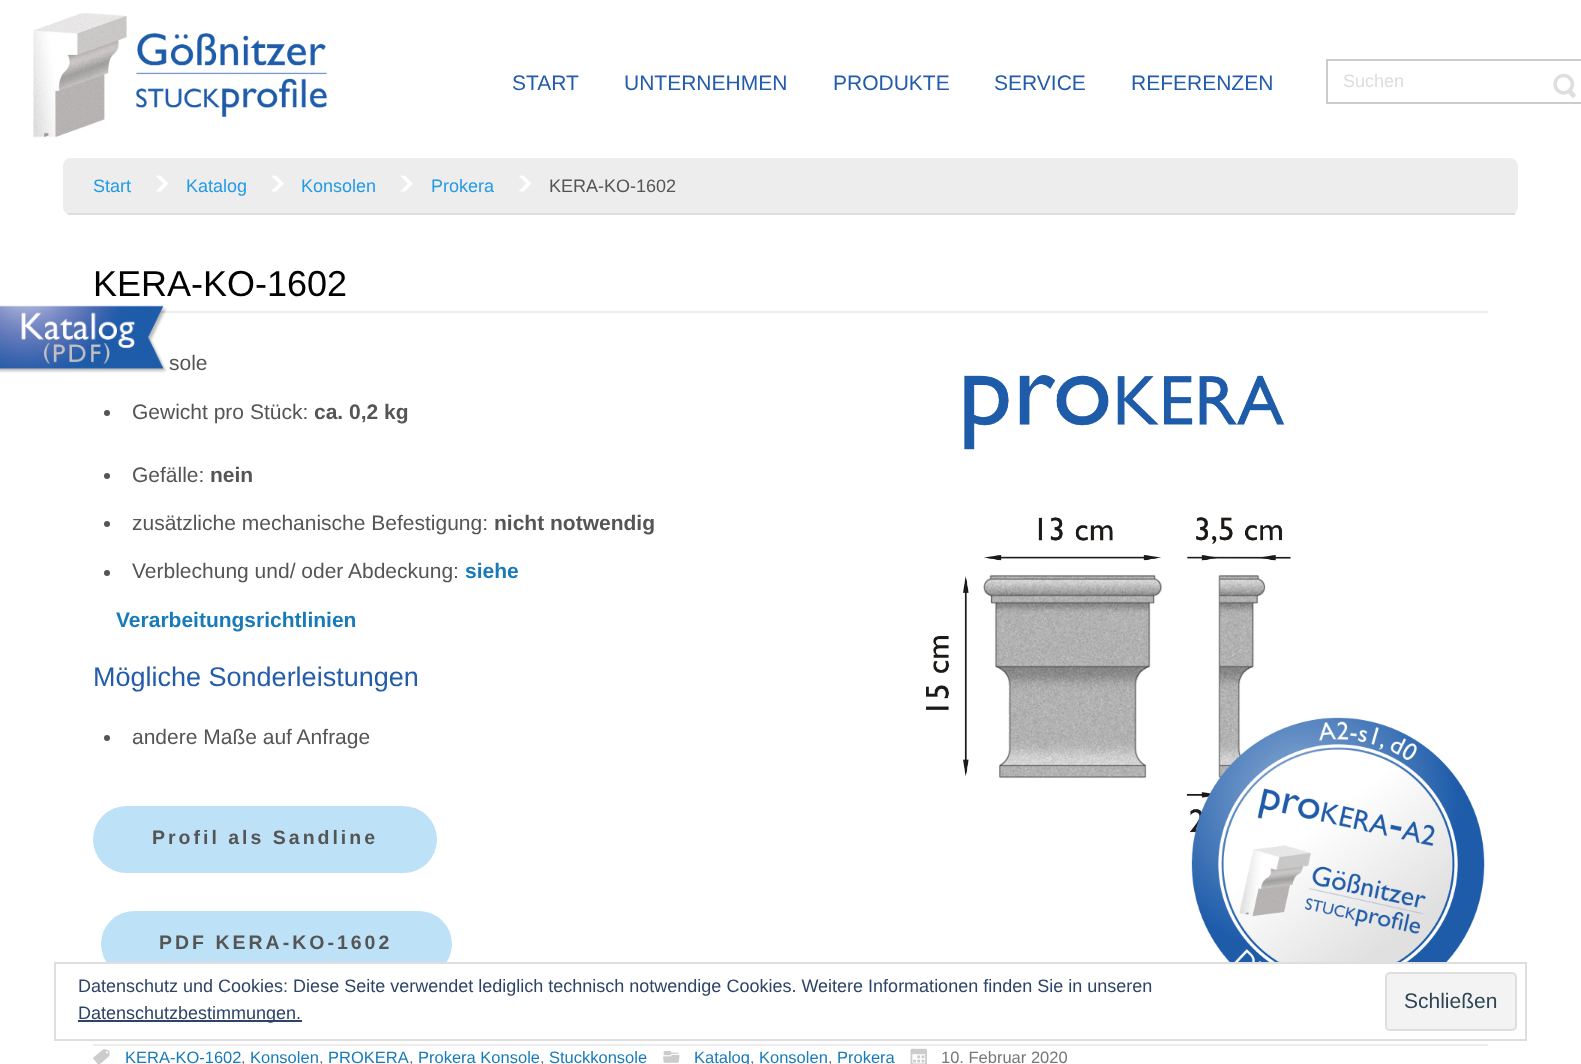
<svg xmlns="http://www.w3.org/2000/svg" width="1581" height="1064">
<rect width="100%" height="100%" fill="#fff"/>
<image x="33" y="13" width="294" height="125" href="media/1.png"/>
<text x="512" y="90" style="font-family:Liberation Sans;font-size:21px;fill:#235caa">START</text>
<text x="624" y="90" style="font-family:Liberation Sans;font-size:21px;fill:#235caa">UNTERNEHMEN</text>
<text x="833" y="90" style="font-family:Liberation Sans;font-size:21px;fill:#235caa">PRODUKTE</text>
<text x="994" y="90" style="font-family:Liberation Sans;font-size:21px;fill:#235caa">SERVICE</text>
<text x="1131" y="90" style="font-family:Liberation Sans;font-size:21px;fill:#235caa">REFERENZEN</text>
<rect x="1327" y="60" width="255" height="43" fill="none" stroke="#ccc" stroke-width="2"/>
<text x="1343" y="87" style="font-family:Liberation Sans;font-size:18px;fill:#ddd">Suchen</text>
<image x="1553" y="73" width="23" height="25" href="media/2.png"/>
<rect x="159" y="311" width="1329" height="2" fill="#ededed"/>
<image x="0" y="305" width="167" height="68" href="media/3.png"/>
<rect x="63" y="158" width="1455" height="57" rx="8" fill="#ededed"/>
<rect x="68" y="213" width="1447" height="2" fill="#ddd"/>
<text x="93" y="192" style="font-family:Liberation Sans;font-size:18px;fill:#249be5">Start</text>
<image x="156" y="175" width="13" height="17" href="media/4.png"/>
<text x="186" y="192" style="font-family:Liberation Sans;font-size:18px;fill:#249be5">Katalog</text>
<image x="271" y="175" width="13" height="17" href="media/5.png"/>
<text x="301" y="192" style="font-family:Liberation Sans;font-size:18px;fill:#249be5">Konsolen</text>
<image x="400" y="175" width="13" height="17" href="media/5.png"/>
<text x="431" y="192" style="font-family:Liberation Sans;font-size:18px;fill:#249be5">Prokera</text>
<image x="519" y="175" width="13" height="17" href="media/4.png"/>
<text x="549" y="192" style="font-family:Liberation Sans;font-size:18px;fill:#555">KERA-KO-1602</text>
<text x="93" y="296" style="font-family:Liberation Sans;font-size:36px;fill:#000">KERA-KO-1602</text>
<text x="169" y="370" style="font-family:Liberation Sans;font-size:21px;fill:#555">sole</text>
<circle cx="107" cy="413" r="3" fill="#555"/>
<text x="132" y="419" style="font-family:Liberation Sans;font-size:21px;fill:#555">Gewicht pro Stück:</text>
<text x="314" y="419" style="font-family:Liberation Sans;font-size:21px;font-weight:bold;fill:#555">ca. 0,2 kg</text>
<circle cx="107" cy="476" r="3" fill="#555"/>
<text x="132" y="482" style="font-family:Liberation Sans;font-size:21px;fill:#555">Gefälle:</text>
<text x="210" y="482" style="font-family:Liberation Sans;font-size:21px;font-weight:bold;fill:#555">nein</text>
<circle cx="107" cy="524" r="3" fill="#555"/>
<text x="132" y="530" style="font-family:Liberation Sans;font-size:21px;fill:#555">zusätzliche mechanische Befestigung:</text>
<text x="494" y="530" style="font-family:Liberation Sans;font-size:21px;font-weight:bold;fill:#555">nicht notwendig</text>
<circle cx="107" cy="573" r="3" fill="#555"/>
<text x="132" y="578" style="font-family:Liberation Sans;font-size:21px;fill:#555">Verblechung und/ oder Abdeckung:</text>
<text x="465" y="578" style="font-family:Liberation Sans;font-size:21px;font-weight:bold;fill:#187bb9">siehe</text>
<text x="116" y="627" style="font-family:Liberation Sans;font-size:21px;font-weight:bold;fill:#187bb9">Verarbeitungsrichtlinien</text>
<text x="93" y="686" style="font-family:Liberation Sans;font-size:27px;fill:#235caa">Mögliche Sonderleistungen</text>
<circle cx="107" cy="738" r="3" fill="#555"/>
<text x="132" y="744" style="font-family:Liberation Sans;font-size:21px;fill:#555">andere Maße auf Anfrage</text>
<rect x="93" y="806" width="344" height="67" rx="33.5" fill="#bde1f7"/>
<text x="152" y="844" style="font-family:Liberation Sans;font-size:19.5px;font-weight:bold;letter-spacing:3px;fill:#555">Profil als Sandline</text>
<image x="926" y="374" width="365" height="459" href="media/7.png"/>
<image x="1191" y="717" width="294" height="245" href="media/6.png"/>
<rect x="101" y="911" width="351" height="66" rx="33" fill="#bde1f7"/>
<text x="159" y="949" style="font-family:Liberation Sans;font-size:19.5px;font-weight:bold;letter-spacing:3px;fill:#555">PDF KERA-KO-1602</text>
<rect x="93" y="1044" width="1395" height="2" fill="#ededed"/>
<image x="93" y="1049" width="17" height="15" href="media/8.png"/>
<text x="125" y="1063" style="font-family:Liberation Sans;font-size:16.5px;fill:#187bb9">KERA-KO-1602</text>
<text x="241" y="1063" style="font-family:Liberation Sans;font-size:16.5px;fill:#777">,</text>
<text x="250" y="1063" style="font-family:Liberation Sans;font-size:16.5px;fill:#187bb9">Konsolen</text>
<text x="319" y="1063" style="font-family:Liberation Sans;font-size:16.5px;fill:#777">,</text>
<text x="328" y="1063" style="font-family:Liberation Sans;font-size:16.5px;fill:#187bb9">PROKERA</text>
<text x="409" y="1063" style="font-family:Liberation Sans;font-size:16.5px;fill:#777">,</text>
<text x="418" y="1063" style="font-family:Liberation Sans;font-size:16.5px;fill:#187bb9">Prokera Konsole</text>
<text x="540" y="1063" style="font-family:Liberation Sans;font-size:16.5px;fill:#777">,</text>
<text x="549" y="1063" style="font-family:Liberation Sans;font-size:16.5px;fill:#187bb9">Stuckkonsole</text>
<image x="663" y="1051" width="17" height="12" href="media/9.png"/>
<text x="694" y="1063" style="font-family:Liberation Sans;font-size:16.5px;fill:#187bb9">Katalog</text>
<text x="750" y="1063" style="font-family:Liberation Sans;font-size:16.5px;fill:#777">,</text>
<text x="759" y="1063" style="font-family:Liberation Sans;font-size:16.5px;fill:#187bb9">Konsolen</text>
<text x="828" y="1063" style="font-family:Liberation Sans;font-size:16.5px;fill:#777">,</text>
<text x="837" y="1063" style="font-family:Liberation Sans;font-size:16.5px;fill:#187bb9">Prokera</text>
<image x="910" y="1048" width="17" height="16" href="media/10.png"/>
<text x="941" y="1063" style="font-family:Liberation Sans;font-size:16.5px;fill:#777">10. Februar 2020</text>
<rect x="108" y="964" width="337" height="13" fill="#fff"/>
<rect x="55" y="963" width="1471" height="77" fill="none" stroke="#dedede" stroke-width="2"/>
<text x="78" y="992" style="font-family:Liberation Sans;font-size:18px;fill:#2e4467">Datenschutz und Cookies: Diese Seite verwendet lediglich technisch notwendige Cookies. Weitere Informationen finden Sie in unseren</text>
<rect x="1386" y="973" width="130" height="57" rx="4" fill="#f3f3f3" stroke="#dedede" stroke-width="2"/>
<text x="1404" y="1008" style="font-family:Liberation Sans;font-size:21px;fill:#2e4453">Schließen</text>
<rect x="78" y="1020" width="224" height="2" fill="#2e4467"/>
<text x="78" y="1019" style="font-family:Liberation Sans;font-size:18px;fill:#2e4467">Datenschutzbestimmungen.</text>
</svg>
